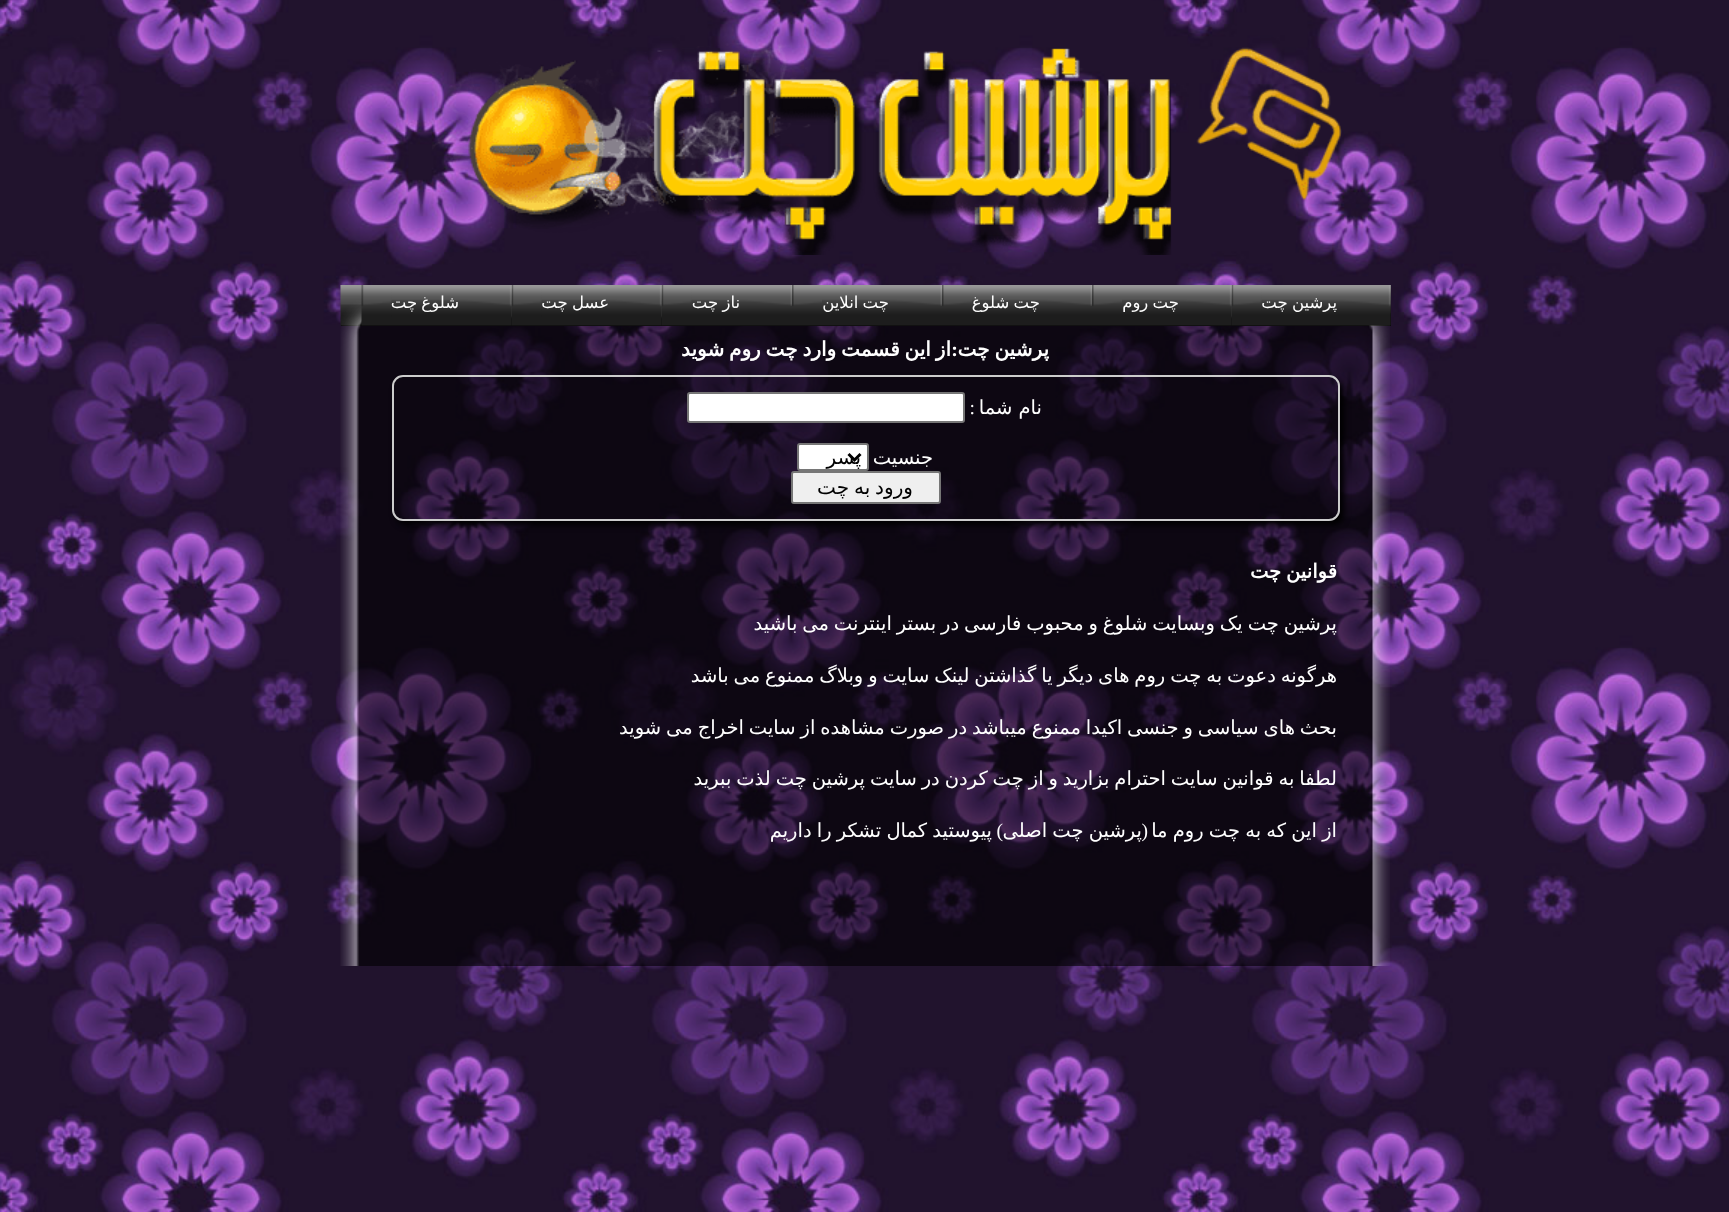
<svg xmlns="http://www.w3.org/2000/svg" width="1729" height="1212">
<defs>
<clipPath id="clip1"><path d="M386 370h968v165h-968zm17 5h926c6 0 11 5 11 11v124c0 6-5 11-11 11h-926c-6 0-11-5-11-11v-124c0-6 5-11 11-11z" clip-rule="evenodd"/></clipPath>
</defs>
<rect width="100%" height="100%" fill="#fff"/>
<image x="0" y="0" width="1729" height="1212" href="media/1.png"/>
<image x="432" y="43" width="910" height="212" href="media/2.png"/>
<rect x="341" y="285" width="1050" height="41" fill="#000"/>
<image x="340" y="285" width="1051" height="41" href="media/3.png"/>
<image x="340" y="300" width="1050" height="666" href="media/18.png"/>
<image x="1231" y="285" width="160" height="41" href="media/4.png"/>
<image x="1261" y="285" width="130" height="28" href="media/5.png"/>
<text x="1337" y="308" word-spacing="-1" style="font-family:DejaVu Sans;font-size:16.5px;direction:rtl;fill:#fff">پرشین چت</text>
<image x="1092" y="285" width="140" height="41" href="media/6.png"/>
<image x="1122" y="285" width="110" height="32" href="media/7.png"/>
<text x="1179" y="308" word-spacing="-1" style="font-family:DejaVu Sans;font-size:16.5px;direction:rtl;fill:#fff">چت روم</text>
<image x="942" y="285" width="150" height="41" href="media/8.png"/>
<image x="972" y="285" width="120" height="21" href="media/9.png"/>
<text x="1040" y="308" word-spacing="-1" style="font-family:DejaVu Sans;font-size:16.5px;direction:rtl;fill:#fff">چت شلوغ</text>
<image x="792" y="285" width="150" height="41" href="media/10.png"/>
<image x="822" y="285" width="120" height="21" href="media/11.png"/>
<text x="889" y="308" word-spacing="-1" style="font-family:DejaVu Sans;font-size:16.5px;direction:rtl;fill:#fff">چت انلاین</text>
<image x="661" y="285" width="131" height="41" href="media/12.png"/>
<image x="691" y="285" width="101" height="21" href="media/13.png"/>
<text x="740" y="308" word-spacing="-1" style="font-family:DejaVu Sans;font-size:16.5px;direction:rtl;fill:#fff">ناز چت</text>
<image x="511" y="285" width="151" height="41" href="media/14.png"/>
<image x="541" y="285" width="121" height="32" href="media/15.png"/>
<text x="609" y="308" word-spacing="-1" style="font-family:DejaVu Sans;font-size:16.5px;direction:rtl;fill:#fff">عسل چت</text>
<image x="361" y="285" width="151" height="41" href="media/16.png"/>
<image x="391" y="285" width="121" height="32" href="media/17.png"/>
<text x="459" y="308" word-spacing="-1" style="font-family:DejaVu Sans;font-size:16.5px;direction:rtl;fill:#fff">شلوغ چت</text>
<text x="1049" y="356" word-spacing="-1.5" style="font-family:DejaVu Sans;font-size:20px;font-weight:bold;direction:rtl;fill:#fff">پرشین چت</text>
<text x="958" y="356" style="font-family:Liberation Serif;font-size:20px;font-weight:bold;direction:rtl;fill:#fff">:</text>
<text x="951" y="356" word-spacing="-1.5" style="font-family:DejaVu Sans;font-size:20px;font-weight:bold;direction:rtl;fill:#fff">از این قسمت وارد چت روم شوید</text>
<g clip-path="url(#clip1)">
<rect x="396" y="380" width="948" height="145" rx="11" fill="#000" filter="blur(3px)"/>
</g>
<rect x="393" y="376" width="946" height="144" rx="10" fill="none" stroke="#ccc" stroke-width="2"/>
<text x="1042" y="414" style="font-family:DejaVu Sans;font-size:19.5px;direction:rtl;fill:#fff">نام شما</text>
<text x="975" y="414" style="font-family:Liberation Serif;font-size:19.5px;direction:rtl;fill:#fff">:</text>
<rect x="688" y="393" width="276" height="29" rx="2" fill="#fff" stroke="#767676" stroke-width="2"/>
<text x="933" y="464" style="font-family:DejaVu Sans;font-size:19.5px;direction:rtl;fill:#fff">جنسيت</text>
<rect x="798" y="444" width="70" height="26" rx="2" fill="#fff" stroke="#767676" stroke-width="2"/>
<path d="M848.5 454l6 6l6-6" fill="none" stroke="#000" stroke-width="3"/>
<text x="861" y="464" style="font-family:DejaVu Sans;font-size:20px;direction:rtl;fill:#000">پسر</text>
<rect x="792" y="472" width="148" height="31" rx="2" fill="#efefef" stroke="#767676" stroke-width="2"/>
<text x="913" y="494" word-spacing="-1.5" style="font-family:DejaVu Sans;font-size:20px;direction:rtl;fill:#000">ورود به چت</text>
<text x="1337" y="578" word-spacing="-1.3" style="font-family:DejaVu Sans;font-size:19.5px;font-weight:bold;direction:rtl;fill:#fff">قوانین چت</text>
<text x="1337" y="630" word-spacing="-1.3" style="font-family:DejaVu Sans;font-size:19.5px;direction:rtl;fill:#fff">پرشین چت یک وبسایت شلوغ و محبوب فارسی در بستر اینترنت می باشید</text>
<text x="1337" y="682" word-spacing="-1.3" style="font-family:DejaVu Sans;font-size:19.5px;direction:rtl;fill:#fff">هرگونه دعوت به چت روم های دیگر یا گذاشتن لینک سایت و وبلاگ ممنوع می باشد</text>
<text x="1337" y="734" word-spacing="-1.3" style="font-family:DejaVu Sans;font-size:19.5px;direction:rtl;fill:#fff">بحث های سیاسی و جنسی اکیدا ممنوع میباشد در صورت مشاهده از سایت اخراج می شوید</text>
<text x="1337" y="785" word-spacing="-1.3" style="font-family:DejaVu Sans;font-size:19.5px;direction:rtl;fill:#fff">لطفا به قوانین سایت احترام بزارید و از چت کردن در سایت پرشین چت لذت ببرید</text>
<text x="1337" y="837" word-spacing="-1" style="font-family:DejaVu Sans;font-size:19.5px;direction:rtl;fill:#fff">از این که به چت روم ما</text>
<text x="1148" y="837" style="font-family:Liberation Serif;font-size:19.5px;direction:rtl;fill:#fff">(</text>
<text x="1142" y="837" word-spacing="-1" style="font-family:DejaVu Sans;font-size:19.5px;direction:rtl;fill:#fff">پرشین چت اصلی</text>
<text x="1003" y="837" style="font-family:Liberation Serif;font-size:19.5px;direction:rtl;fill:#fff">)</text>
<text x="992" y="837" word-spacing="-1" style="font-family:DejaVu Sans;font-size:19.5px;direction:rtl;fill:#fff">پیوستید کمال تشکر را داریم</text>
</svg>
